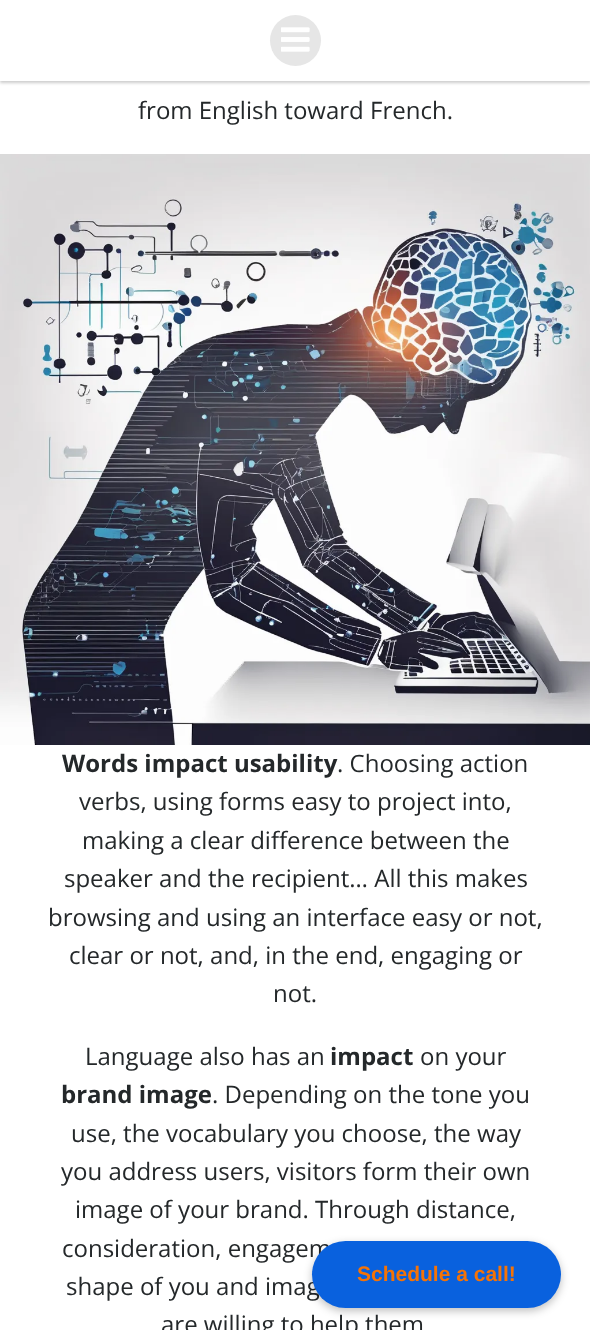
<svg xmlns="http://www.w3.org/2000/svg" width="590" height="1330">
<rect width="100%" height="100%" fill="#fff"/>
<rect y="2" width="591" height="81" fill="#00000033" filter="blur(1.5px)"/>
<rect width="590" height="81" fill="#fff"/>
<circle cx="295.5" cy="40.5" r="25.5" fill="#e6e6e6"/>
<image x="281" y="27" width="29" height="25" href="media/1.png"/>
<text x="138" y="119" style="font-family:Open Sans;font-size:24px;fill:#24282a">from English toward French.</text>
<image x="0" y="154" width="590" height="591" href="media/2.png"/>
<text x="62" y="772" style="font-family:Open Sans;font-size:24px;font-weight:bold;fill:#24282a">Words impact usability</text>
<text x="337" y="772" style="font-family:Open Sans;font-size:24px;fill:#24282a">. Choosing action</text>
<text x="79" y="810" style="font-family:Open Sans;font-size:24px;fill:#24282a">verbs, using forms easy to project into,</text>
<text x="82" y="849" style="font-family:Open Sans;font-size:24px;fill:#24282a">making a clear difference between the</text>
<text x="64" y="887" style="font-family:Open Sans;font-size:24px;fill:#24282a">speaker and the recipient… All this makes</text>
<text x="48" y="926" style="font-family:Open Sans;font-size:24px;fill:#24282a">browsing and using an interface easy or not,</text>
<text x="69" y="964" style="font-family:Open Sans;font-size:24px;fill:#24282a">clear or not, and, in the end, engaging or</text>
<text x="273" y="1002" style="font-family:Open Sans;font-size:24px;fill:#24282a">not.</text>
<text x="85" y="1065" style="font-family:Open Sans;font-size:24px;fill:#24282a">Language also has an</text>
<text x="330" y="1065" style="font-family:Open Sans;font-size:24px;font-weight:bold;fill:#24282a">impact</text>
<text x="420" y="1065" style="font-family:Open Sans;font-size:24px;fill:#24282a">on your</text>
<text x="61" y="1103" style="font-family:Open Sans;font-size:24px;font-weight:bold;fill:#24282a">brand image</text>
<text x="212" y="1103" style="font-family:Open Sans;font-size:24px;fill:#24282a">. Depending on the tone you</text>
<text x="71" y="1142" style="font-family:Open Sans;font-size:24px;fill:#24282a">use, the vocabulary you choose, the way</text>
<text x="61" y="1180" style="font-family:Open Sans;font-size:24px;fill:#24282a">you address users, visitors form their own</text>
<text x="75" y="1218" style="font-family:Open Sans;font-size:24px;fill:#24282a">image of your brand. Through distance,</text>
<text x="62" y="1257" style="font-family:Open Sans;font-size:24px;fill:#24282a">consideration, engagem</text>
<text x="66" y="1295" style="font-family:Open Sans;font-size:24px;fill:#24282a">shape of you and imag</text>
<text x="161" y="1333" style="font-family:Open Sans;font-size:24px;fill:#24282a">are willing to help them</text>
<rect x="312" y="1244" width="249" height="67" rx="33.5" fill="#00000040" filter="blur(4px)"/>
<rect x="312" y="1241" width="249" height="67" rx="33.5" fill="#0961de"/>
<text x="357" y="1281" style="font-family:Liberation Sans;font-size:21px;font-weight:bold;fill:#f47307">Schedule a call!</text>
</svg>
